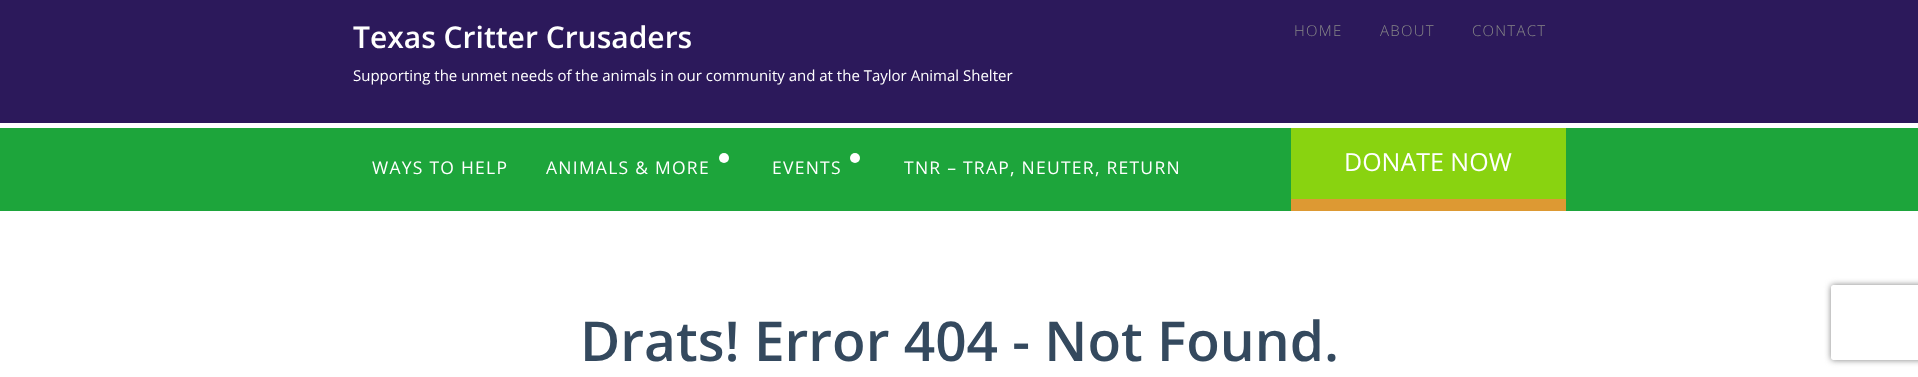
<svg xmlns="http://www.w3.org/2000/svg" width="1918" height="377">
<defs>
<clipPath id="clip1"><path d="M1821 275h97v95h-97zm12.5 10h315c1.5 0 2.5 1 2.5 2.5v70c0 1.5-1 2.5-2.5 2.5h-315c-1.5 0-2.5-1-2.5-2.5v-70c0-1.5 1-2.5 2.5-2.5z" clip-rule="evenodd"/></clipPath>
</defs>
<rect width="100%" height="100%" fill="#fff"/>
<rect width="1918" height="123" fill="#2c195b"/>
<text x="353" y="48" style="font-family:Open Sans;font-size:30px;font-weight:600;fill:#fff">Texas Critter Crusaders</text>
<text x="353" y="81" style="font-family:Open Sans;font-size:15px;fill:#fff">Supporting the unmet needs of the animals in our community and at the Taylor Animal Shelter</text>
<text x="1294" y="36" style="font-family:Open Sans;font-size:15px;font-weight:300;letter-spacing:1.25px;fill:#888">HOME</text>
<text x="1380" y="36" style="font-family:Open Sans;font-size:15px;font-weight:300;letter-spacing:1.25px;fill:#888">ABOUT</text>
<text x="1472" y="36" style="font-family:Open Sans;font-size:15px;font-weight:300;letter-spacing:1.25px;fill:#888">CONTACT</text>
<rect y="128" width="1918" height="83" fill="#1da53b"/>
<text x="372" y="174" style="font-family:Open Sans;font-size:17.5px;letter-spacing:1.25px;fill:#fff">WAYS TO HELP</text>
<circle cx="724" cy="158" r="5" fill="#fff"/>
<text x="546" y="174" style="font-family:Open Sans;font-size:17.5px;letter-spacing:1.25px;fill:#fff">ANIMALS &amp; MORE</text>
<circle cx="855" cy="158" r="5" fill="#fff"/>
<text x="772" y="174" style="font-family:Open Sans;font-size:17.5px;letter-spacing:1.25px;fill:#fff">EVENTS</text>
<text x="904" y="174" style="font-family:Open Sans;font-size:17.5px;letter-spacing:1.25px;fill:#fff">TNR – TRAP, NEUTER, RETURN</text>
<rect x="1291" y="128" width="275" height="71" fill="#89d310"/>
<rect x="1291" y="199" width="275" height="12" fill="#d93"/>
<text x="1344" y="171" style="font-family:Open Sans;font-size:25px;fill:#fff">DONATE NOW</text>
<text x="580" y="361" style="font-family:Open Sans;font-size:55px;font-weight:600;fill:#34495e">Drats! Error 404 - Not Found.</text>
<g clip-path="url(#clip1)">
<rect x="1831" y="285" width="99" height="75" rx="2.5" fill="#808080" filter="blur(3px)"/>
</g>
</svg>
